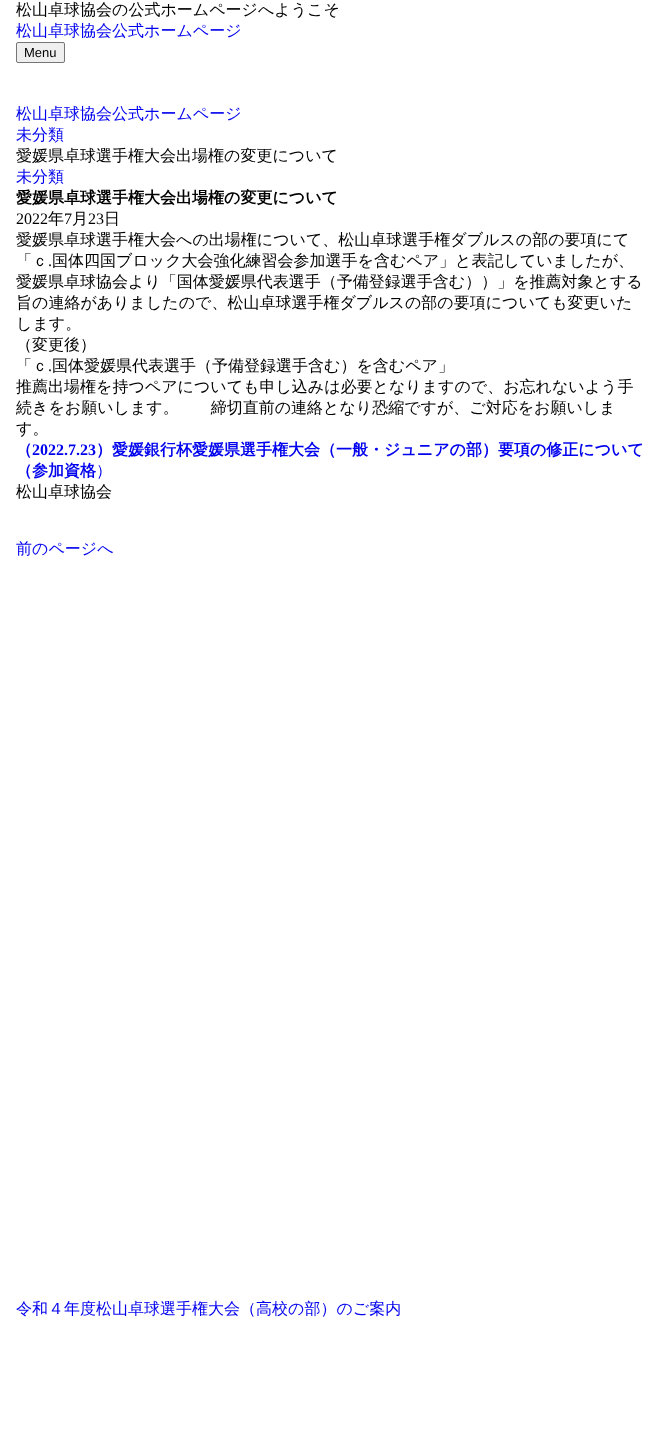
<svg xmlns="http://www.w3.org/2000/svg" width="661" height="1444">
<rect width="100%" height="100%" fill="#fff"/>
<text x="16" y="15" style="font-family:WenQuanYi Zen Hei;font-size:16px;font-weight:500;fill:#000">松山卓球協会の公式ホームページへようこそ</text>
<text x="16" y="36" style="font-family:WenQuanYi Zen Hei;font-size:16px;font-weight:500;fill:#00e">松山卓球協会公式ホームページ</text>
<rect x="16.5" y="42.5" width="48" height="20" rx="1.5" fill="#efefef" stroke="#767676"/>
<text x="24" y="57" style="font-family:Liberation Sans;font-size:13px;fill:#000">Menu</text>
<text x="16" y="119" style="font-family:WenQuanYi Zen Hei;font-size:16px;font-weight:500;fill:#00e">松山卓球協会公式ホームページ</text>
<text x="16" y="140" style="font-family:WenQuanYi Zen Hei;font-size:16px;font-weight:500;fill:#00e">未分類</text>
<text x="16" y="161" style="font-family:WenQuanYi Zen Hei;font-size:16px;font-weight:500;fill:#000">愛媛県卓球選手権大会出場権の変更について</text>
<text x="16" y="182" style="font-family:WenQuanYi Zen Hei;font-size:16px;font-weight:500;fill:#00e">未分類</text>
<text x="16" y="203" style="font-family:WenQuanYi Zen Hei;font-size:16px;font-weight:bold;fill:#000">愛媛県卓球選手権大会出場権の変更について</text>
<text x="16" y="224" style="font-family:Liberation Serif;font-size:16px;fill:#000">2022</text>
<text x="48" y="224" style="font-family:WenQuanYi Zen Hei;font-size:16px;font-weight:500;fill:#000">年</text>
<text x="64" y="224" style="font-family:Liberation Serif;font-size:16px;fill:#000">7</text>
<text x="72" y="224" style="font-family:WenQuanYi Zen Hei;font-size:16px;font-weight:500;fill:#000">月</text>
<text x="88" y="224" style="font-family:Liberation Serif;font-size:16px;fill:#000">23</text>
<text x="104" y="224" style="font-family:WenQuanYi Zen Hei;font-size:16px;font-weight:500;fill:#000">日</text>
<text x="16" y="245" style="font-family:WenQuanYi Zen Hei;font-size:16px;font-weight:500;fill:#000">愛媛県卓球選手権大会への出場権について、松山卓球選手権ダブルスの部の要項にて</text>
<text x="16" y="266" style="font-family:WenQuanYi Zen Hei;font-size:16px;font-weight:500;fill:#000">「ｃ</text>
<text x="48" y="266" style="font-family:Liberation Serif;font-size:16px;fill:#000">.</text>
<text x="52" y="266" style="font-family:WenQuanYi Zen Hei;font-size:16px;font-weight:500;fill:#000">国体四国ブロック大会強化練習会参加選手を含むペア」と表記していましたが、</text>
<text x="16" y="287" style="font-family:WenQuanYi Zen Hei;font-size:16px;font-weight:500;fill:#000">愛媛県卓球協会より「国体愛媛県代表選手（予備登録選手含む））」を推薦対象とする</text>
<text x="16" y="308" style="font-family:WenQuanYi Zen Hei;font-size:16px;font-weight:500;fill:#000">旨の連絡がありましたので、松山卓球選手権ダブルスの部の要項についても変更いた</text>
<text x="16" y="329" style="font-family:WenQuanYi Zen Hei;font-size:16px;font-weight:500;fill:#000">します。</text>
<text x="16" y="350" style="font-family:WenQuanYi Zen Hei;font-size:16px;font-weight:500;fill:#000">（変更後）</text>
<text x="16" y="371" style="font-family:WenQuanYi Zen Hei;font-size:16px;font-weight:500;fill:#000">「ｃ</text>
<text x="48" y="371" style="font-family:Liberation Serif;font-size:16px;fill:#000">.</text>
<text x="52" y="371" style="font-family:WenQuanYi Zen Hei;font-size:16px;font-weight:500;fill:#000">国体愛媛県代表選手（予備登録選手含む）を含むペア」</text>
<text x="16" y="392" style="font-family:WenQuanYi Zen Hei;font-size:16px;font-weight:500;fill:#000">推薦出場権を持つペアについても申し込みは必要となりますので、お忘れないよう手</text>
<text x="16" y="413" style="font-family:WenQuanYi Zen Hei;font-size:16px;font-weight:500;fill:#000">続きをお願いします。　　締切直前の連絡となり恐縮ですが、ご対応をお願いしま</text>
<text x="16" y="434" style="font-family:WenQuanYi Zen Hei;font-size:16px;font-weight:500;fill:#000">す。</text>
<text x="16" y="455" style="font-family:WenQuanYi Zen Hei;font-size:16px;font-weight:bold;fill:#00e">（</text>
<text x="32" y="455" style="font-family:Liberation Serif;font-size:16px;font-weight:bold;fill:#00e">2022.7.23</text>
<text x="96" y="455" style="font-family:WenQuanYi Zen Hei;font-size:16px;font-weight:bold;fill:#00e">）愛媛銀行杯愛媛県選手権大会（一般・ジュニアの部）要項の修正について</text>
<text x="16" y="476" style="font-family:WenQuanYi Zen Hei;font-size:16px;font-weight:bold;fill:#00e">（参加資格</text>
<text x="96" y="476" style="font-family:WenQuanYi Zen Hei;font-size:16px;font-weight:500;fill:#00e">）</text>
<text x="16" y="497" style="font-family:WenQuanYi Zen Hei;font-size:16px;font-weight:500;fill:#000">松山卓球協会</text>
<text x="16" y="554" style="font-family:WenQuanYi Zen Hei;font-size:16px;font-weight:500;fill:#00e">前のページへ</text>
<text x="16" y="1314" style="font-family:WenQuanYi Zen Hei;font-size:16px;font-weight:500;fill:#00e">令和４年度松山卓球選手権大会（高校の部）のご案内</text>
</svg>
